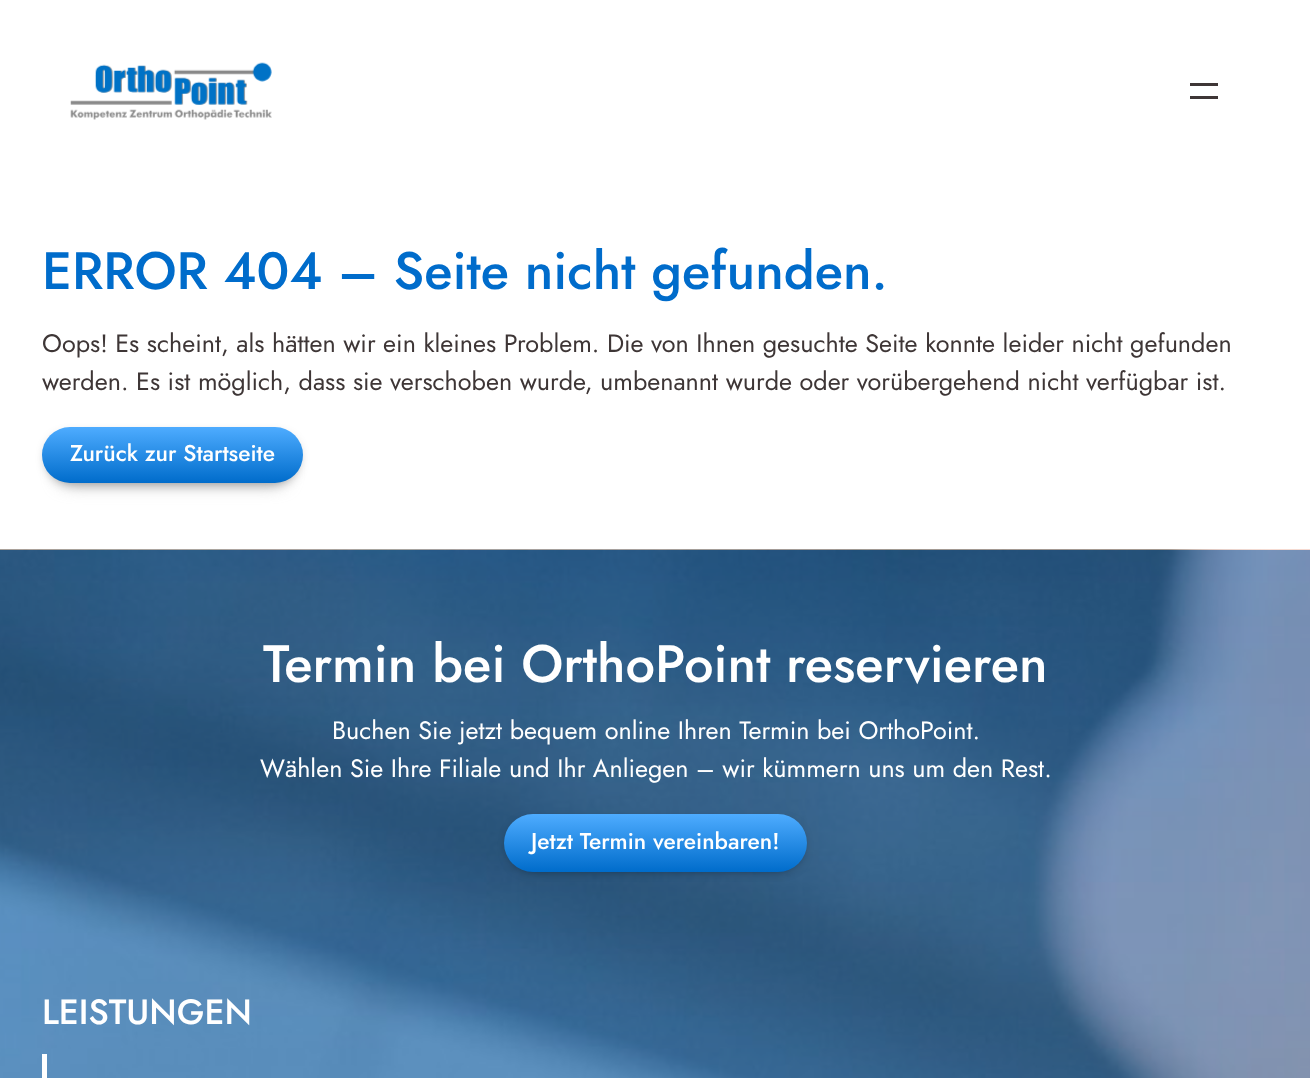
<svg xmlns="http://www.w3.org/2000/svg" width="1310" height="1078">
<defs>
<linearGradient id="g1" gradientUnits="userSpaceOnUse" x1="172" y1="483" x2="172" y2="427"><stop offset="0" stop-color="#006ccb"/><stop offset="1" stop-color="#4eacff"/></linearGradient>
<linearGradient id="g2" gradientUnits="userSpaceOnUse" x1="655" y1="872" x2="655" y2="814"><stop offset="0" stop-color="#006ccb"/><stop offset="1" stop-color="#4eacff"/></linearGradient>
</defs>
<rect width="100%" height="100%" fill="#fff"/>
<image x="70" y="62" width="202" height="58" href="media/1.png"/>
<rect x="1190" y="83" width="28" height="3" fill="#3e3636"/>
<rect x="1190" y="96" width="28" height="3" fill="#3e3636"/>
<text x="42" y="289" style="font-family:Jost;font-size:52.5px;font-weight:500;fill:#006ccb">ERROR 404 – Seite nicht gefunden.</text>
<text x="42" y="352" style="font-family:Jost;font-size:25.2px;fill:#3e3636">Oops! Es scheint, als hätten wir ein kleines Problem. Die von Ihnen gesuchte Seite konnte leider nicht gefunden</text>
<text x="42" y="390" style="font-family:Jost;font-size:25.2px;fill:#3e3636">werden. Es ist möglich, dass sie verschoben wurde, umbenannt wurde oder vorübergehend nicht verfügbar ist.</text>
<rect x="51" y="439" width="243" height="39" rx="19.5" fill="#000" filter="blur(7px)"/>
<rect x="60" y="462" width="225" height="21" rx="10.5" fill="#a9a9a9" filter="blur(9px)"/>
<rect x="42" y="427" width="261" height="56" rx="28" fill="url(#g1)"/>
<text x="70" y="461" style="font-family:Jost;font-size:22.75px;font-weight:500;fill:#fff">Zurück zur Startseite</text>
<image x="0" y="549" width="1310" height="529" href="media/2.png"/>
<text x="263" y="682" style="font-family:Jost;font-size:52.5px;font-weight:500;fill:#fff">Termin bei OrthoPoint reservieren</text>
<text x="332" y="739" style="font-family:Jost;font-size:25.2px;fill:#fff">Buchen Sie jetzt bequem online Ihren Termin bei OrthoPoint.</text>
<text x="260" y="777" style="font-family:Jost;font-size:25.2px;fill:#fff">Wählen Sie Ihre Filiale und Ihr Anliegen – wir kümmern uns um den Rest.</text>
<rect x="513" y="826" width="285" height="40" rx="20" fill="#000" filter="blur(7px)"/>
<rect x="504" y="814" width="303" height="58" rx="29" fill="url(#g2)"/>
<text x="531" y="849" style="font-family:Jost;font-size:22.75px;font-weight:500;fill:#fff">Jetzt Termin vereinbaren!</text>
<text x="42" y="1024" style="font-family:Jost;font-size:35px;font-weight:500;fill:#fff">LEISTUNGEN</text>
<rect x="42" y="1054" width="5" height="24" fill="#fff"/>
</svg>
